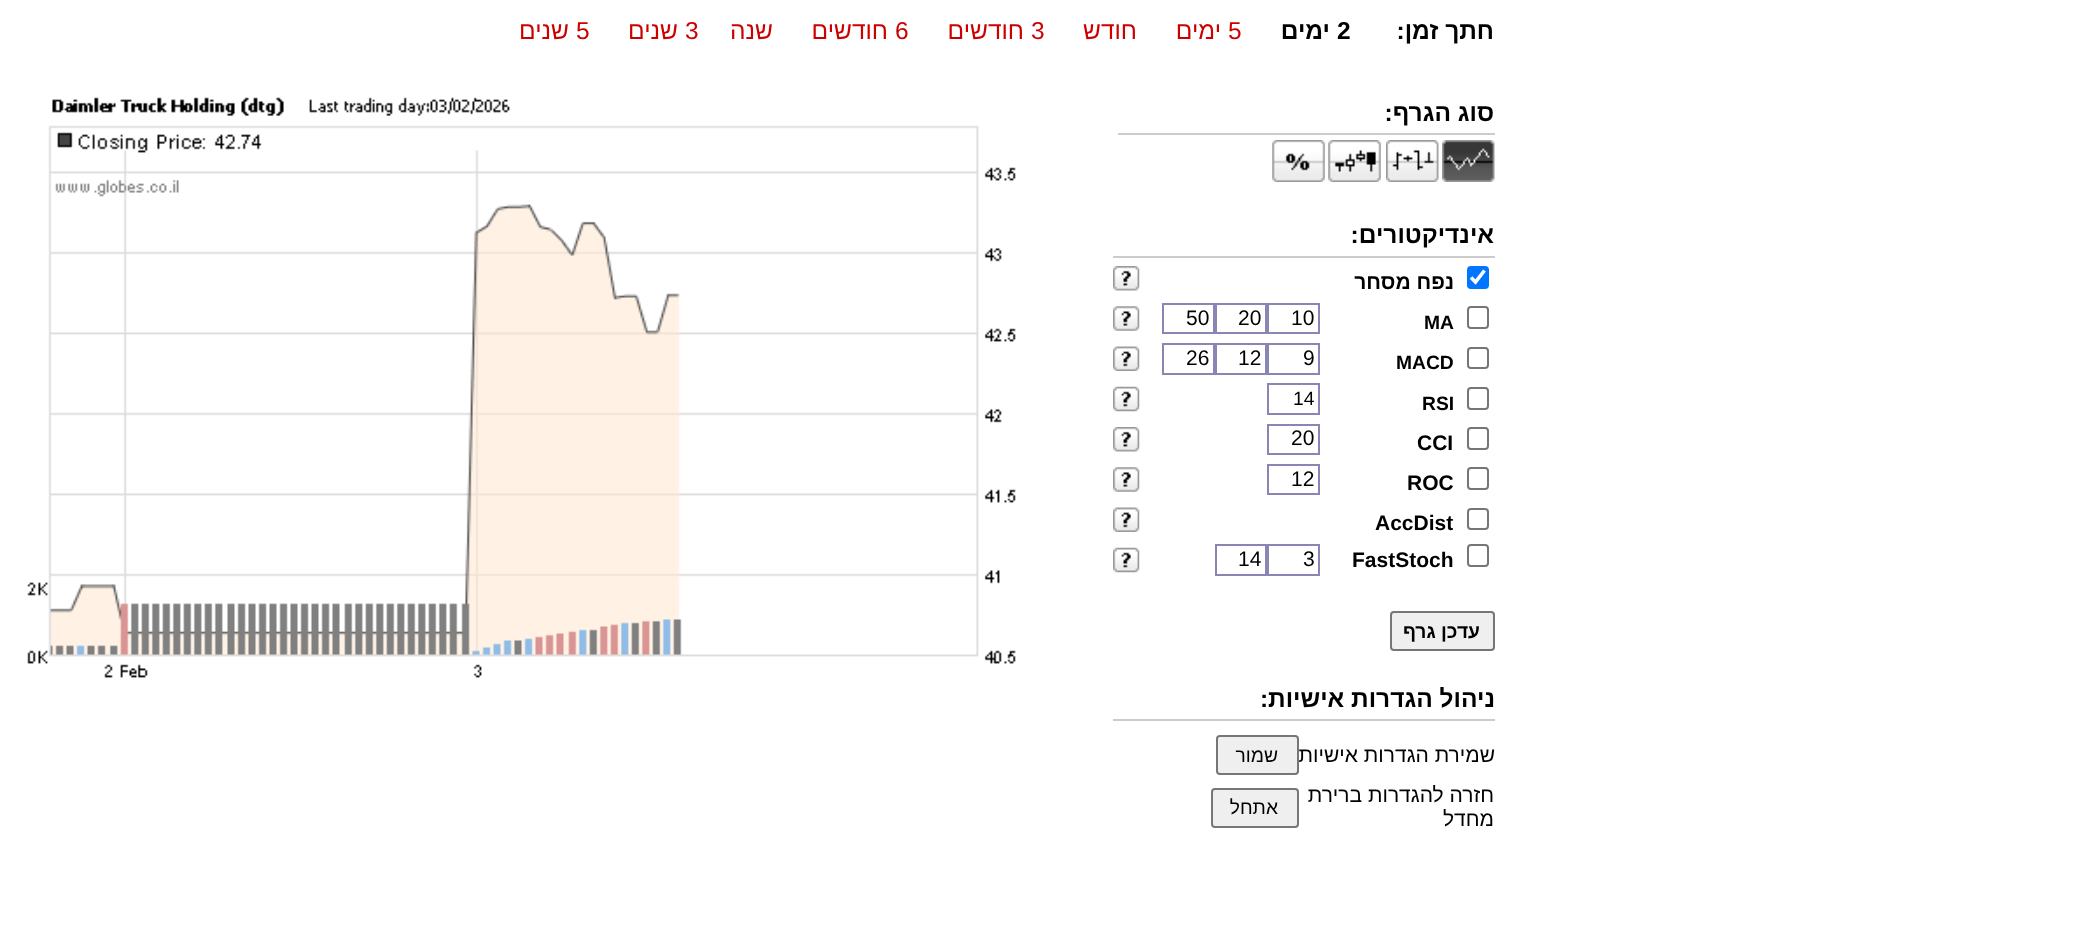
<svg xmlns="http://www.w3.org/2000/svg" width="2078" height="943">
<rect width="100%" height="100%" fill="#fff"/>
<text x="1494" y="39" style="font-family:Liberation Sans;font-size:24.5px;font-weight:bold;direction:rtl;fill:#000">חתך זמן:</text>
<text x="1337" y="39" style="font-family:Liberation Sans;font-size:24.5px;font-weight:bold;fill:#000">2</text>
<text x="1330" y="39" style="font-family:Liberation Sans;font-size:24.5px;font-weight:bold;direction:rtl;fill:#000">ימים</text>
<text x="1228" y="39" style="font-family:Liberation Sans;font-size:24.5px;fill:#c00">5</text>
<text x="1221" y="39" style="font-family:Liberation Sans;font-size:24.5px;direction:rtl;fill:#c00">ימים</text>
<text x="1137" y="39" style="font-family:Liberation Sans;font-size:24.5px;direction:rtl;fill:#c00">חודש</text>
<text x="1031" y="39" style="font-family:Liberation Sans;font-size:24.5px;fill:#c00">3</text>
<text x="1024" y="39" style="font-family:Liberation Sans;font-size:24.5px;direction:rtl;fill:#c00">חודשים</text>
<text x="895" y="39" style="font-family:Liberation Sans;font-size:24.5px;fill:#c00">6</text>
<text x="888" y="39" style="font-family:Liberation Sans;font-size:24.5px;direction:rtl;fill:#c00">חודשים</text>
<text x="773" y="39" style="font-family:Liberation Sans;font-size:24.5px;direction:rtl;fill:#c00">שנה</text>
<text x="685" y="39" style="font-family:Liberation Sans;font-size:24.5px;fill:#c00">3</text>
<text x="678" y="39" style="font-family:Liberation Sans;font-size:24.5px;direction:rtl;fill:#c00">שנים</text>
<text x="576" y="39" style="font-family:Liberation Sans;font-size:24.5px;fill:#c00">5</text>
<text x="569" y="39" style="font-family:Liberation Sans;font-size:24.5px;direction:rtl;fill:#c00">שנים</text>
<rect x="1118" y="133" width="377" height="2" fill="#ccc"/>
<text x="1494" y="121" style="font-family:Liberation Sans;font-size:24.5px;font-weight:bold;direction:rtl;fill:#000">סוג הגרף:</text>
<image x="1442" y="140" width="53" height="42" href="media/1.png"/>
<image x="1386" y="140" width="53" height="42" href="media/2.png"/>
<image x="1328" y="140" width="53" height="42" href="media/3.png"/>
<image x="1272" y="140" width="53" height="42" href="media/4.png"/>
<image x="27" y="97" width="989" height="581" href="media/5.png"/>
<rect x="1113" y="256" width="382" height="2" fill="#ccc"/>
<text x="1494" y="243" style="font-family:Liberation Sans;font-size:24.5px;font-weight:bold;direction:rtl;fill:#000">אינדיקטורים:</text>
<rect x="1467" y="266" width="22" height="23" rx="4" fill="#0075ff"/>
<path d="M1471 277.5l4.5 4.5l9-11.5" fill="none" stroke="#fff" stroke-width="3.6"/>
<text x="1454" y="289" style="font-family:Liberation Sans;font-size:21px;font-weight:bold;direction:rtl;fill:#000">נפח מסחר</text>
<image x="1113" y="266" width="27" height="25" href="media/6.png"/>
<rect x="1468" y="307" width="20" height="21" rx="3" fill="none" stroke="#767676" stroke-width="2"/>
<text x="1424" y="329" style="font-family:Liberation Sans;font-size:19.25px;font-weight:bold;fill:#000">MA</text>
<rect x="1268" y="304" width="51" height="29" fill="none" stroke="#8986b5" stroke-width="2"/>
<text x="1291" y="325" style="font-family:Liberation Sans;font-size:21px;fill:#000">10</text>
<rect x="1216" y="304" width="50" height="29" fill="none" stroke="#8986b5" stroke-width="2"/>
<text x="1238" y="325" style="font-family:Liberation Sans;font-size:21px;fill:#000">20</text>
<rect x="1163" y="304" width="51" height="29" fill="none" stroke="#8986b5" stroke-width="2"/>
<text x="1186" y="325" style="font-family:Liberation Sans;font-size:21px;fill:#000">50</text>
<image x="1113" y="306" width="27" height="25" href="media/7.png"/>
<rect x="1468" y="348" width="20" height="20" rx="3" fill="none" stroke="#767676" stroke-width="2"/>
<text x="1396" y="369" style="font-family:Liberation Sans;font-size:19.25px;font-weight:bold;fill:#000">MACD</text>
<rect x="1268" y="344" width="51" height="30" fill="none" stroke="#8986b5" stroke-width="2"/>
<text x="1303" y="365" style="font-family:Liberation Sans;font-size:21px;fill:#000">9</text>
<rect x="1216" y="344" width="50" height="30" fill="none" stroke="#8986b5" stroke-width="2"/>
<text x="1238" y="365" style="font-family:Liberation Sans;font-size:21px;fill:#000">12</text>
<rect x="1163" y="344" width="51" height="30" fill="none" stroke="#8986b5" stroke-width="2"/>
<text x="1186" y="365" style="font-family:Liberation Sans;font-size:21px;fill:#000">26</text>
<image x="1113" y="346" width="27" height="25" href="media/8.png"/>
<rect x="1468" y="388" width="20" height="21" rx="3" fill="none" stroke="#767676" stroke-width="2"/>
<text x="1422" y="410" style="font-family:Liberation Sans;font-size:19.25px;font-weight:bold;fill:#000">RSI</text>
<rect x="1268" y="384" width="51" height="30" fill="none" stroke="#8986b5" stroke-width="2"/>
<text x="1293" y="405" style="font-family:Liberation Sans;font-size:19.25px;fill:#000">14</text>
<image x="1113" y="386" width="27" height="26" href="media/9.png"/>
<rect x="1468" y="428" width="20" height="21" rx="3" fill="none" stroke="#767676" stroke-width="2"/>
<text x="1417" y="450" style="font-family:Liberation Sans;font-size:21px;font-weight:bold;fill:#000">CCI</text>
<rect x="1268" y="425" width="51" height="29" fill="none" stroke="#8986b5" stroke-width="2"/>
<text x="1291" y="445" style="font-family:Liberation Sans;font-size:21px;fill:#000">20</text>
<image x="1113" y="427" width="27" height="25" href="media/6.png"/>
<rect x="1468" y="468" width="20" height="21" rx="3" fill="none" stroke="#767676" stroke-width="2"/>
<text x="1407" y="490" style="font-family:Liberation Sans;font-size:21px;font-weight:bold;fill:#000">ROC</text>
<rect x="1268" y="465" width="51" height="29" fill="none" stroke="#8986b5" stroke-width="2"/>
<text x="1291" y="486" style="font-family:Liberation Sans;font-size:21px;fill:#000">12</text>
<image x="1113" y="467" width="27" height="25" href="media/7.png"/>
<rect x="1468" y="509" width="20" height="20" rx="3" fill="none" stroke="#767676" stroke-width="2"/>
<text x="1375" y="530" style="font-family:Liberation Sans;font-size:21px;font-weight:bold;fill:#000">AccDist</text>
<image x="1113" y="507" width="27" height="25" href="media/8.png"/>
<rect x="1468" y="545" width="20" height="21" rx="3" fill="none" stroke="#767676" stroke-width="2"/>
<text x="1352" y="567" style="font-family:Liberation Sans;font-size:21px;font-weight:bold;fill:#000">FastStoch</text>
<rect x="1268" y="545" width="51" height="30" fill="none" stroke="#8986b5" stroke-width="2"/>
<text x="1303" y="566" style="font-family:Liberation Sans;font-size:21px;fill:#000">3</text>
<rect x="1216" y="545" width="50" height="30" fill="none" stroke="#8986b5" stroke-width="2"/>
<text x="1238" y="566" style="font-family:Liberation Sans;font-size:21px;fill:#000">14</text>
<image x="1113" y="547" width="27" height="26" href="media/9.png"/>
<rect x="1391" y="612" width="103" height="38" rx="3" fill="#efefef" stroke="#767676" stroke-width="2"/>
<text x="1480" y="638" style="font-family:Liberation Sans;font-size:19.25px;font-weight:bold;direction:rtl;fill:#000">עדכן גרף</text>
<rect x="1113" y="719" width="382" height="2" fill="#ccc"/>
<text x="1495" y="707" style="font-family:Liberation Sans;font-size:24.5px;font-weight:bold;direction:rtl;fill:#000">ניהול הגדרות אישיות:</text>
<text x="1495" y="762" style="font-family:Liberation Sans;font-size:21px;direction:rtl;fill:#000">שמירת הגדרות אישיות</text>
<rect x="1217" y="736" width="81" height="38" rx="3" fill="#efefef" stroke="#767676" stroke-width="2"/>
<text x="1278" y="762" style="font-family:Liberation Sans;font-size:19.25px;direction:rtl;fill:#000">שמור</text>
<text x="1494" y="802" style="font-family:Liberation Sans;font-size:21px;direction:rtl;fill:#000">חזרה להגדרות ברירת</text>
<text x="1494" y="826" style="font-family:Liberation Sans;font-size:21px;direction:rtl;fill:#000">מחדל</text>
<rect x="1212" y="789" width="86" height="38" rx="3" fill="#efefef" stroke="#767676" stroke-width="2"/>
<text x="1278" y="814" style="font-family:Liberation Sans;font-size:19.25px;direction:rtl;fill:#000">אתחל</text>
</svg>
